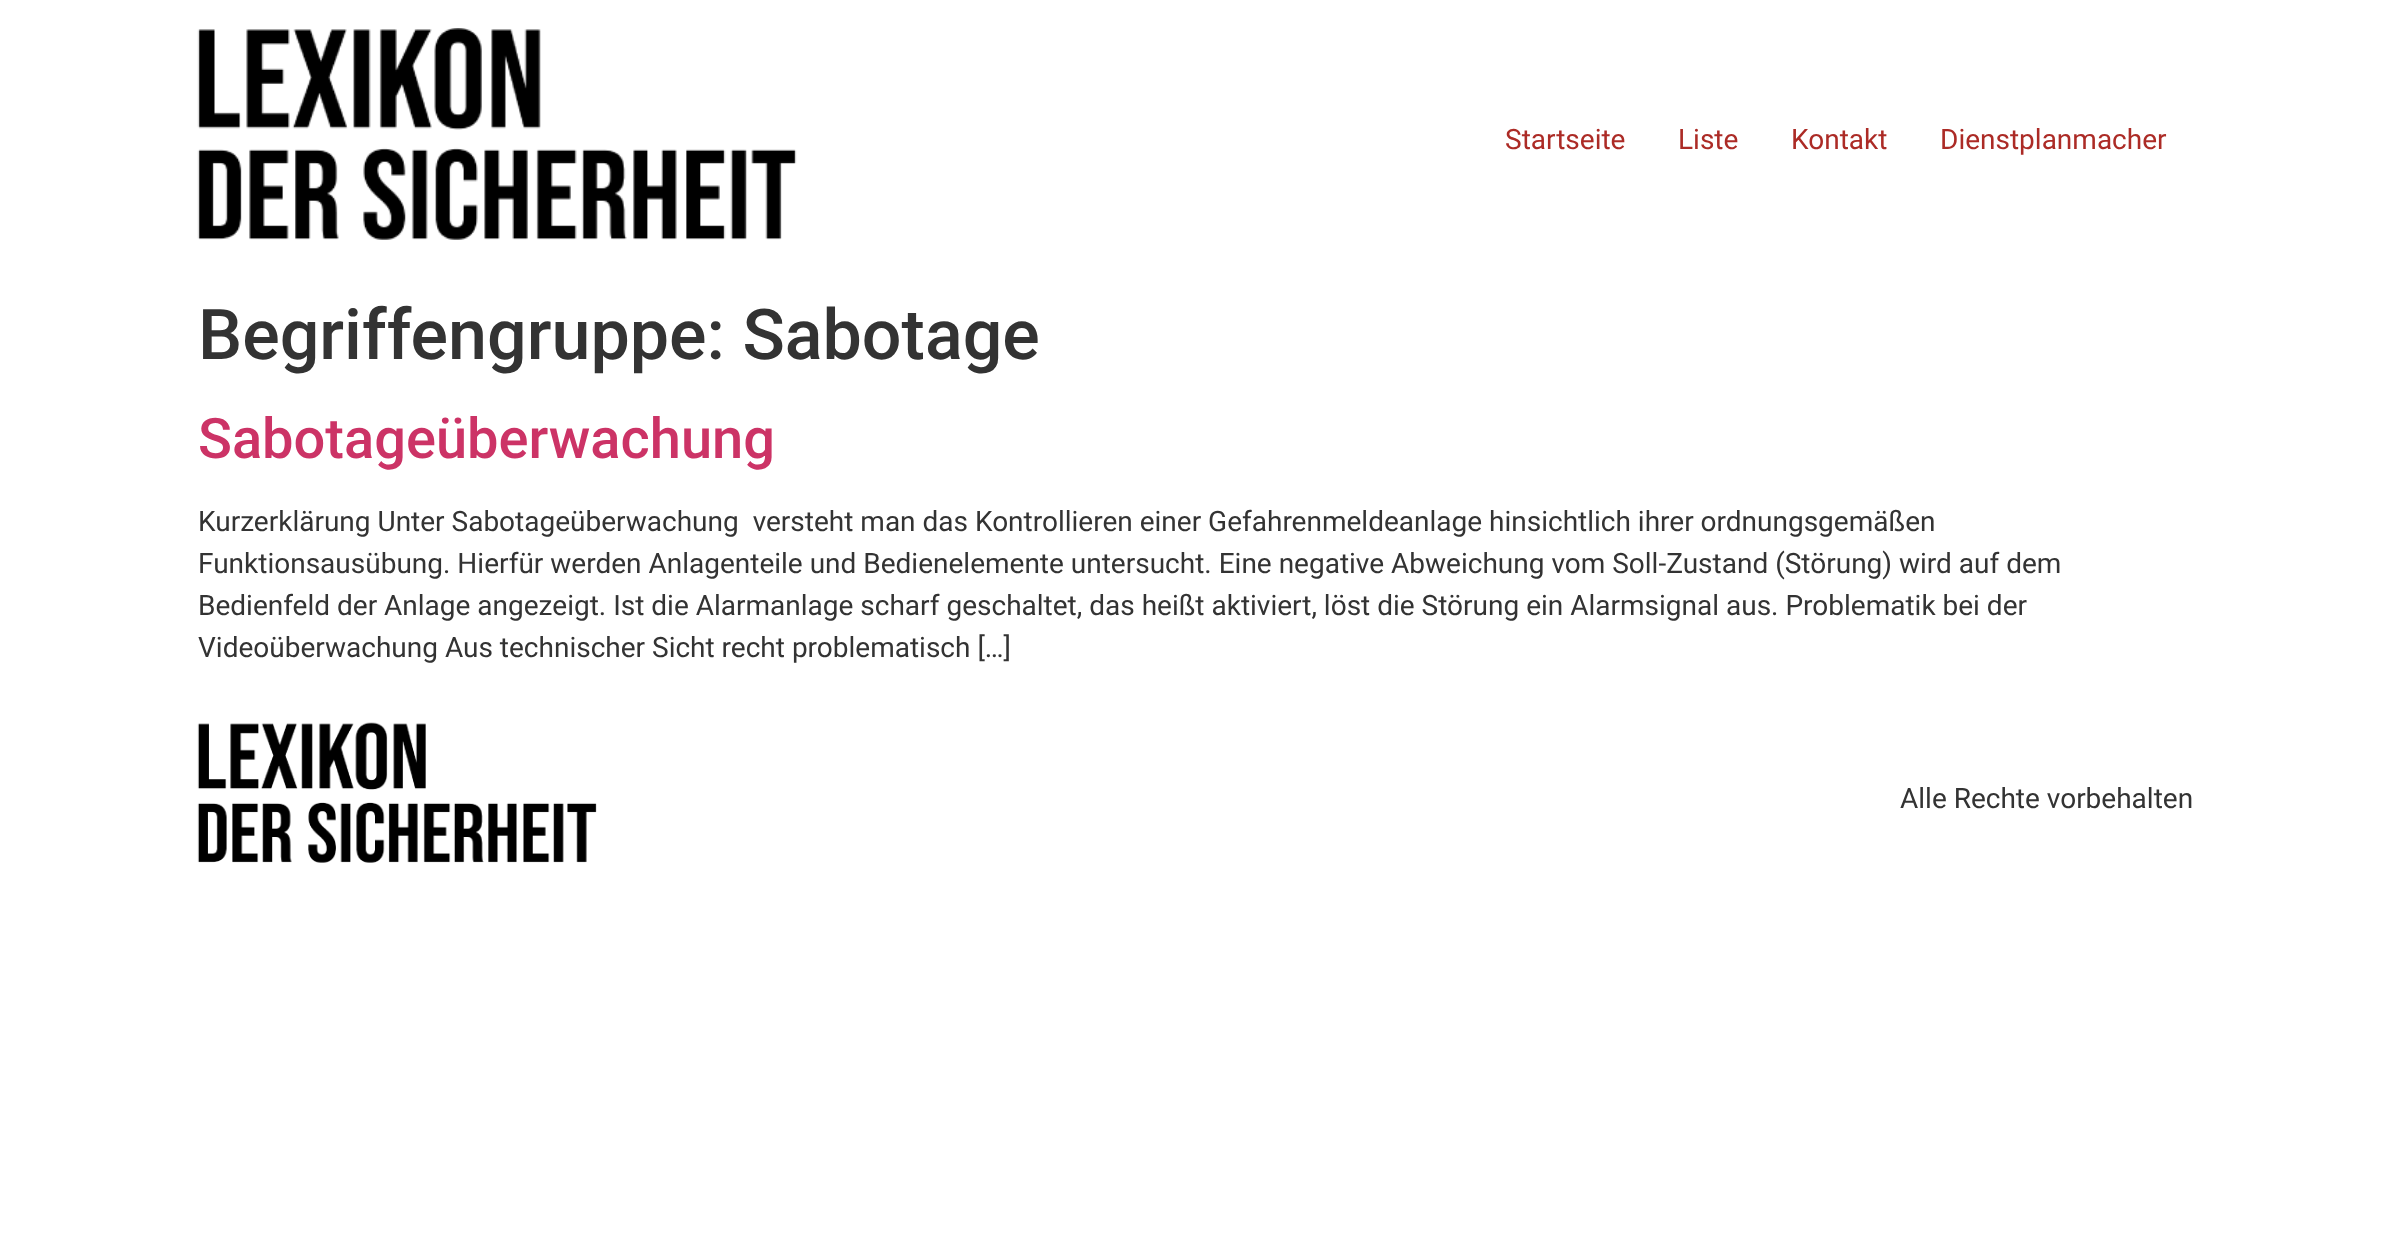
<svg xmlns="http://www.w3.org/2000/svg" width="2389" height="1259">
<rect width="100%" height="100%" fill="#fff"/>
<image x="197" y="28" width="600" height="212" href="media/1.png"/>
<text x="1505" y="149" style="font-family:Roboto;font-size:28px;fill:#ac2b26">Startseite</text>
<text x="1678" y="149" style="font-family:Roboto;font-size:28px;fill:#ac2b26">Liste</text>
<text x="1791" y="149" style="font-family:Roboto;font-size:28px;fill:#ac2b26">Kontakt</text>
<text x="1940" y="149" style="font-family:Roboto;font-size:28px;fill:#ac2b26">Dienstplanmacher</text>
<text x="198" y="359" style="font-family:Roboto;font-size:70px;font-weight:500;fill:#333">Begriffengruppe: Sabotage</text>
<text x="198" y="458" style="font-family:Roboto;font-size:56px;font-weight:500;fill:#c36">Sabotageüberwachung</text>
<text x="198" y="531" style="font-family:Roboto;font-size:28px;fill:#333" xml:space="preserve">Kurzerklärung Unter Sabotageüberwachung  versteht man das Kontrollieren einer Gefahrenmeldeanlage hinsichtlich ihrer ordnungsgemäßen</text>
<text x="198" y="573" style="font-family:Roboto;font-size:28px;fill:#333">Funktionsausübung. Hierfür werden Anlagenteile und Bedienelemente untersucht. Eine negative Abweichung vom Soll-Zustand (Störung) wird auf dem</text>
<text x="198" y="615" style="font-family:Roboto;font-size:28px;fill:#333">Bedienfeld der Anlage angezeigt. Ist die Alarmanlage scharf geschaltet, das heißt aktiviert, löst die Störung ein Alarmsignal aus. Problematik bei der</text>
<text x="198" y="657" style="font-family:Roboto;font-size:28px;fill:#333">Videoüberwachung Aus technischer Sicht recht problematisch […]</text>
<image x="197" y="722" width="400" height="141" href="media/2.png"/>
<text x="1900" y="808" style="font-family:Roboto;font-size:28px;fill:#333">Alle Rechte vorbehalten</text>
</svg>
